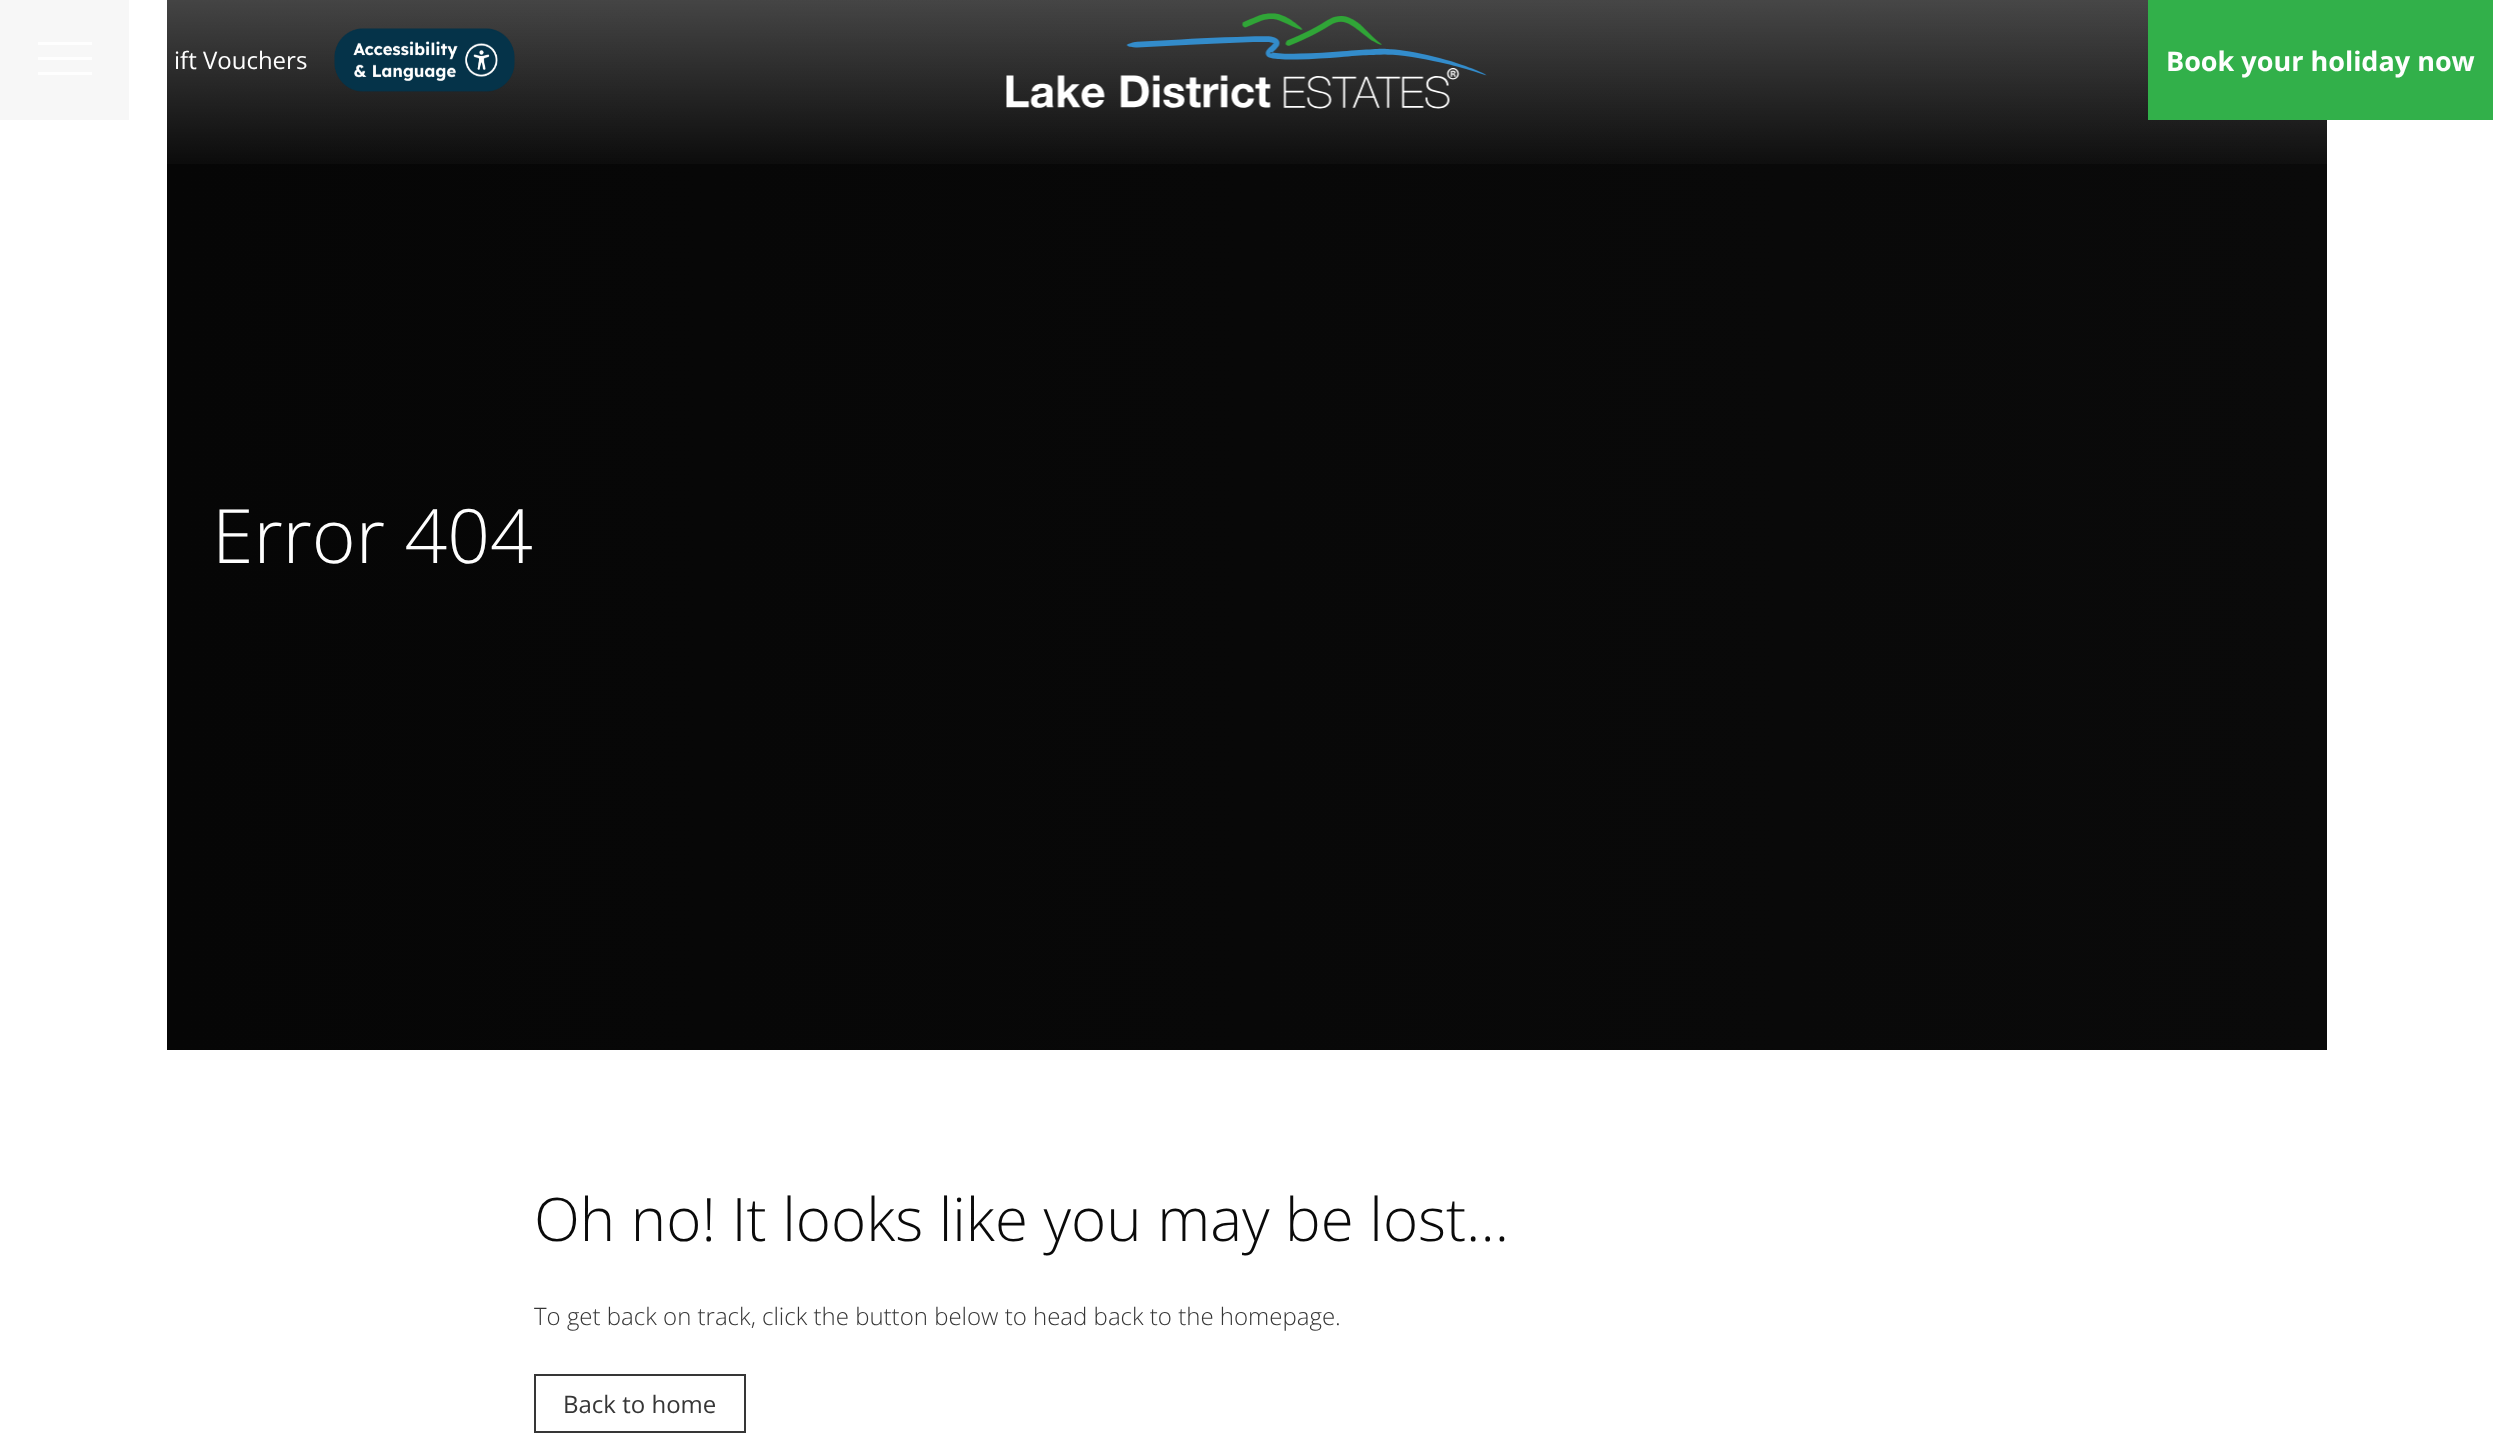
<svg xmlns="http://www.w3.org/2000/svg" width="2493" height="1433">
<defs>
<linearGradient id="g1" gradientUnits="userSpaceOnUse" x1="167" y1="525" x2="2327" y2="525"><stop offset="0" stop-color="#060606"/><stop offset="1" stop-color="#0a0a0a"/></linearGradient>
<linearGradient id="g2" gradientUnits="userSpaceOnUse" x1="1247" y1="0" x2="1247" y2="180"><stop offset="0" stop-color="#fff" stop-opacity="0.25"/><stop offset="1" stop-color="#fff" stop-opacity="0"/></linearGradient>
</defs>
<rect width="100%" height="100%" fill="#fff"/>
<rect x="167" width="2160" height="1050" fill="url(#g1)"/>
<rect x="167" width="2160" height="164" fill="url(#g2)"/>
<rect width="129" height="120" fill="#f7f7f7"/>
<rect x="38" y="57" width="54" height="3" fill="#fefefe"/>
<rect x="38" y="42" width="54" height="3" fill="#fefefe"/>
<rect x="38" y="72" width="54" height="3" fill="#fefefe"/>
<text x="174" y="69" style="font-family:Open Sans;font-size:24px;fill:#fefefe">ift Vouchers</text>
<image x="334" y="28" width="181" height="64" href="media/1.png"/>
<image x="1006" y="13" width="481" height="96" href="media/2.png"/>
<rect x="2148" width="345" height="120" fill="#32b04a"/>
<text x="2166" y="71" style="font-family:Open Sans;font-size:27px;font-weight:bold;fill:#fefefe">Book your holiday now</text>
<text x="212" y="563" style="font-family:Open Sans;font-size:75px;font-weight:300;fill:#fefefe">Error 404</text>
<text x="534" y="1241" style="font-family:Open Sans;font-size:60px;font-weight:300;fill:#0a0a0a">Oh no! It looks like you may be lost...</text>
<text x="534" y="1325" style="font-family:Open Sans;font-size:24px;font-weight:300;fill:#363636">To get back on track, click the button below to head back to the homepage.</text>
<rect x="535" y="1375" width="210" height="57" fill="none" stroke="#363636" stroke-width="2"/>
<text x="563" y="1413" style="font-family:Open Sans;font-size:24px;fill:#363636">Back to home</text>
</svg>
